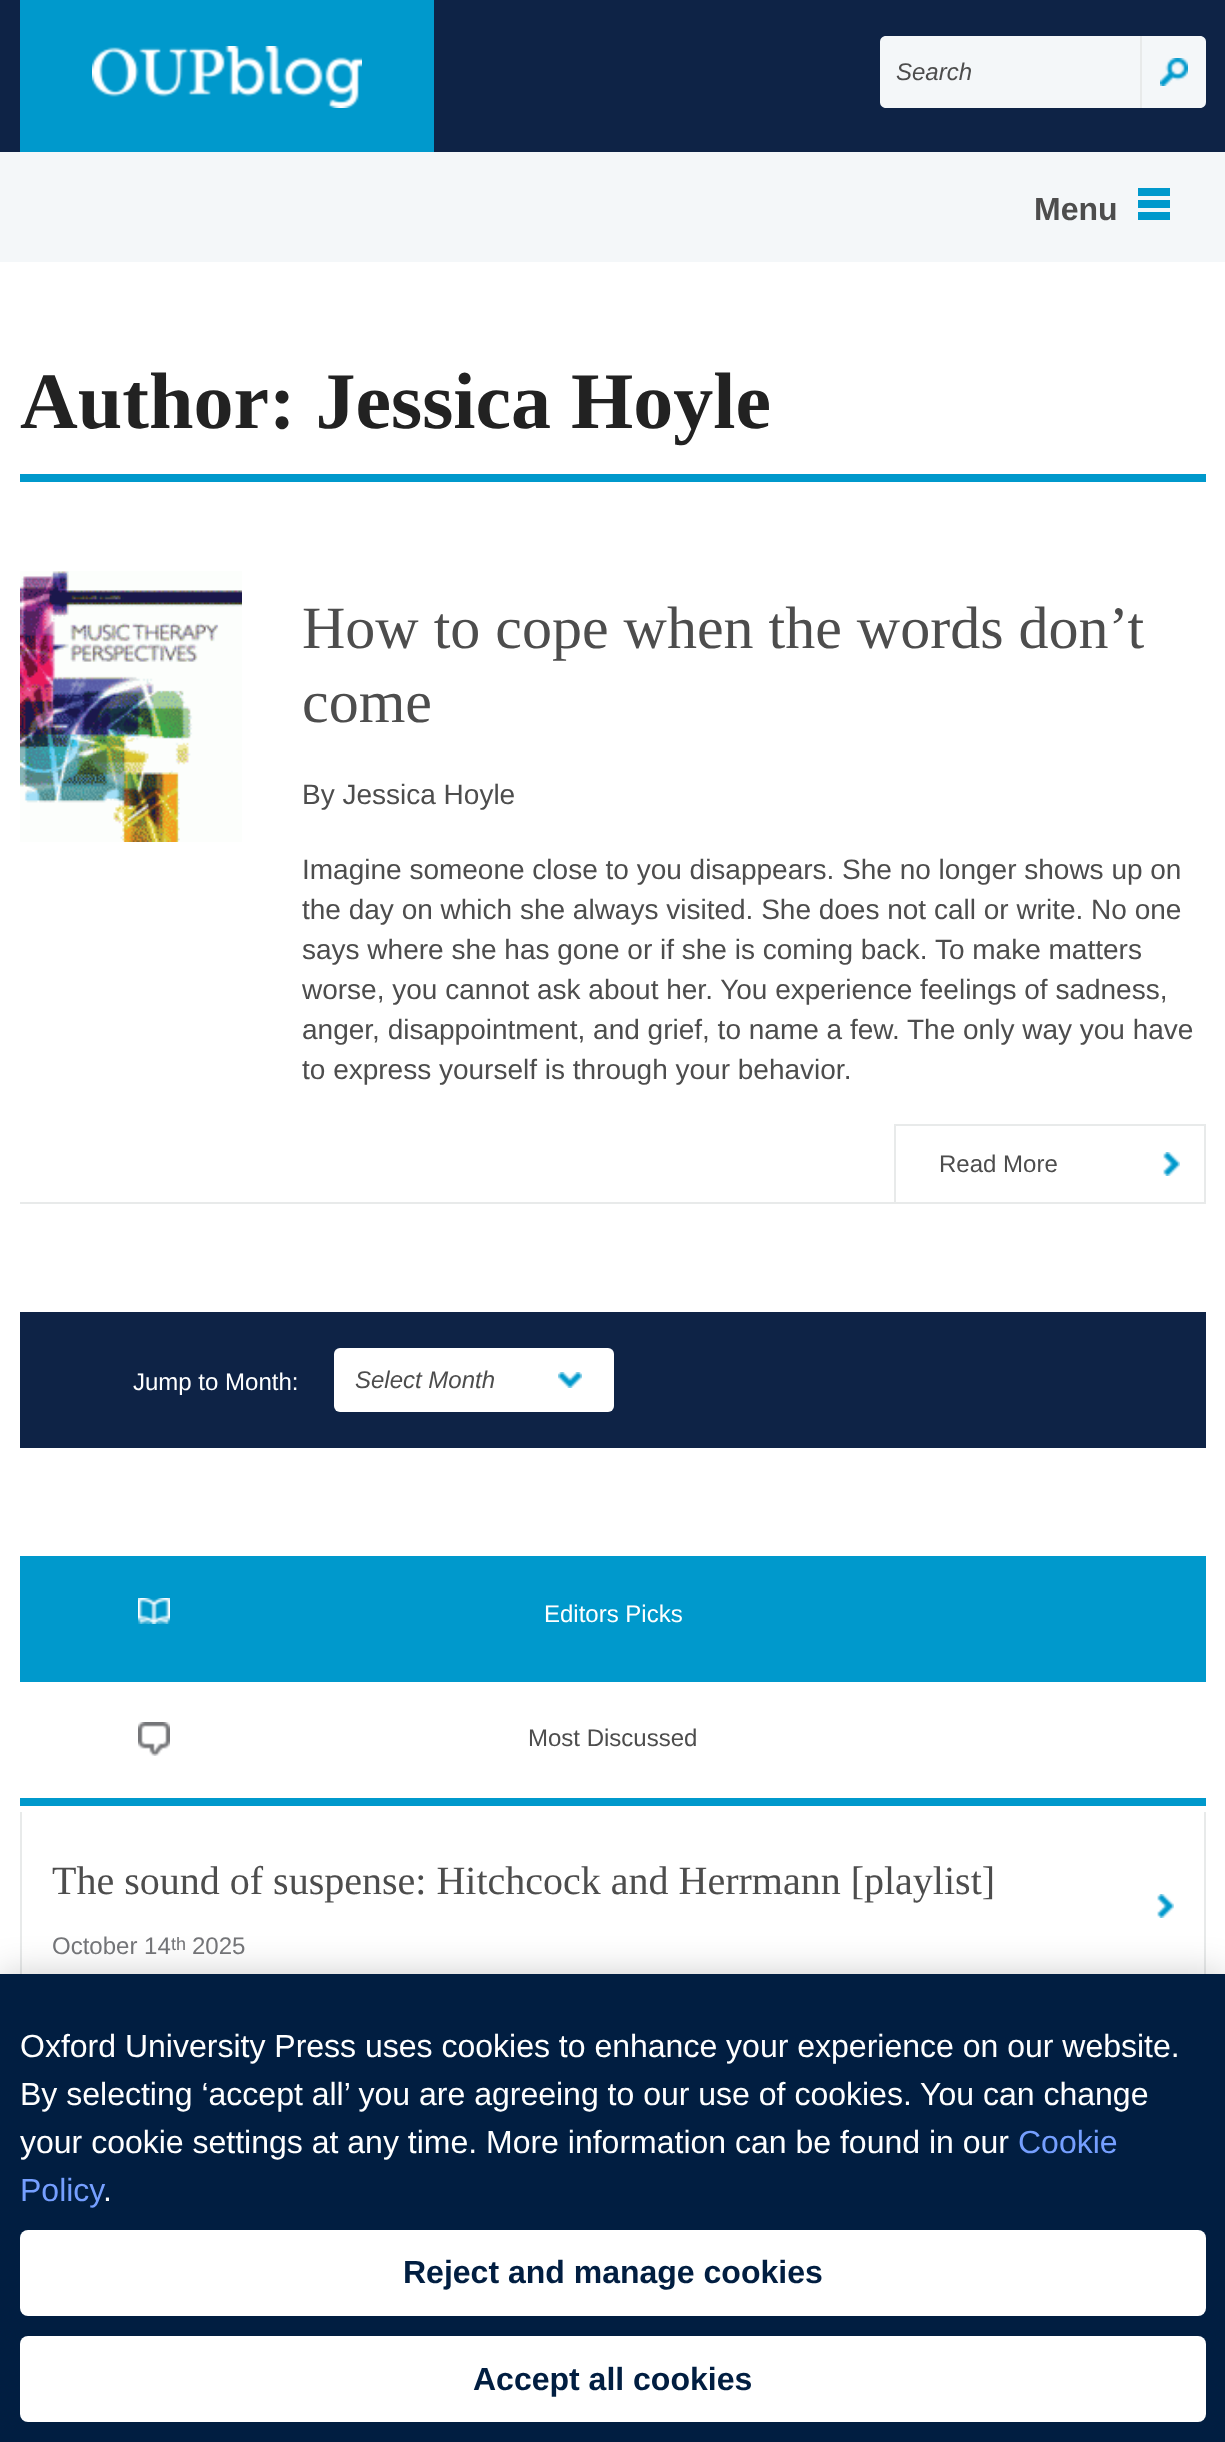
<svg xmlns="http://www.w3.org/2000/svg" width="1225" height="2442">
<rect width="100%" height="100%" fill="#fff"/>
<rect width="1225" height="152" fill="#0e2346"/>
<rect x="20" width="414" height="152" fill="#09c"/>
<image x="92" y="46" width="270" height="62" href="media/1.png"/>
<path d="M886 36h254v72h-254c-3.5 0-6-2.5-6-6v-60c0-3.5 2.5-6 6-6z" fill="#f4f7f9"/>
<text x="896" y="80" style="font-family:Liberation Sans;font-size:24px;font-style:italic;fill:#4d4d4d">Search</text>
<path d="M1140 36h60c3.5 0 6 2.5 6 6v60c0 3.5-2.5 6-6 6h-60z" fill="#f4f7f9"/>
<rect x="1140" y="36" width="2" height="72" fill="#e8eaea"/>
<image x="1160" y="58" width="28" height="28" href="media/2.png"/>
<rect y="152" width="1225" height="110" fill="#f4f7f9"/>
<rect x="1138" y="188" width="32" height="8" fill="#09c"/>
<text x="1034" y="220" style="font-family:Liberation Sans;font-size:32px;font-weight:bold;fill:#4d4d4d">Menu</text>
<rect x="1138" y="200" width="32" height="8" fill="#09c"/>
<rect x="1138" y="212" width="32" height="8" fill="#09c"/>
<rect x="20" y="474" width="1186" height="8" fill="#09c"/>
<text x="20" y="428" style="font-family:Liberation Serif;font-size:80px;font-weight:bold;fill:#222">Author: Jessica Hoyle</text>
<rect x="20" y="1202" width="1186" height="2" fill="#e8eaea"/>
<image x="20" y="571" width="222" height="271" href="media/3.png"/>
<text x="302" y="648" style="font-family:Liberation Serif;font-size:60px;fill:#4d4d4d">How to cope when the words don’t</text>
<text x="302" y="722" style="font-family:Liberation Serif;font-size:60px;fill:#4d4d4d">come</text>
<text x="302" y="804" style="font-family:Liberation Sans;font-size:28px;fill:#4d4d4d">By Jessica Hoyle</text>
<text x="302" y="879" style="font-family:Liberation Sans;font-size:28px;fill:#4d4d4d">Imagine someone close to you disappears. She no longer shows up on</text>
<text x="302" y="919" style="font-family:Liberation Sans;font-size:28px;fill:#4d4d4d">the day on which she always visited. She does not call or write. No one</text>
<text x="302" y="959" style="font-family:Liberation Sans;font-size:28px;fill:#4d4d4d">says where she has gone or if she is coming back. To make matters</text>
<text x="302" y="999" style="font-family:Liberation Sans;font-size:28px;fill:#4d4d4d">worse, you cannot ask about her. You experience feelings of sadness,</text>
<text x="302" y="1039" style="font-family:Liberation Sans;font-size:28px;fill:#4d4d4d">anger, disappointment, and grief, to name a few. The only way you have</text>
<text x="302" y="1079" style="font-family:Liberation Sans;font-size:28px;fill:#4d4d4d">to express yourself is through your behavior.</text>
<rect x="894" y="1124" width="312" height="2" fill="#e8eaea"/>
<rect x="1204" y="1124" width="2" height="78" fill="#e8eaea"/>
<rect x="894" y="1124" width="2" height="78" fill="#e8eaea"/>
<text x="939" y="1172" style="font-family:Liberation Sans;font-size:24px;fill:#4d4d4d">Read More</text>
<image x="1163" y="1152" width="17" height="24" href="media/4.png"/>
<rect x="20" y="1312" width="1186" height="136" fill="#0e2346"/>
<text x="133" y="1390" style="font-family:Liberation Sans;font-size:24px;fill:#fff">Jump to Month:</text>
<rect x="334" y="1348" width="280" height="64" rx="6" fill="#fff"/>
<text x="355" y="1388" style="font-family:Liberation Sans;font-size:24px;font-style:italic;fill:#4d4d4d">Select Month</text>
<image x="558" y="1372" width="24" height="16" href="media/5.png"/>
<rect x="20" y="1556" width="1186" height="126" fill="#09c"/>
<image x="138" y="1598" width="32" height="26" href="media/6.png"/>
<text x="544" y="1622" style="font-family:Liberation Sans;font-size:24px;fill:#fff">Editors Picks</text>
<rect x="1204" y="1812" width="2" height="162" fill="#e8eaea"/>
<rect x="20" y="1812" width="2" height="162" fill="#e8eaea"/>
<text x="52" y="1894" style="font-family:Liberation Serif;font-size:40px;fill:#4d4d4d">The sound of suspense: Hitchcock and Herrmann [playlist]</text>
<image x="1157" y="1894" width="17" height="24" href="media/4.png"/>
<text x="52" y="1954" style="font-family:Liberation Sans;font-size:24px;fill:#757679">October 14</text>
<text x="171" y="1950" style="font-family:Liberation Sans;font-size:18px;fill:#757679">th</text>
<text x="192" y="1954" style="font-family:Liberation Sans;font-size:24px;fill:#757679">2025</text>
<rect x="20" y="1798" width="1186" height="8" fill="#09c"/>
<image x="138" y="1722" width="32" height="34" href="media/7.png"/>
<text x="528" y="1746" style="font-family:Liberation Sans;font-size:24px;fill:#4d4d4d">Most Discussed</text>
<rect y="1974" width="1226" height="468" fill="#00000033" filter="blur(18px)"/>
<rect y="1974" width="1225" height="468" fill="#011e41"/>
<text x="20" y="2057" style="font-family:Liberation Sans;font-size:32px;fill:#fff">Oxford University Press uses cookies to enhance your experience on our website.</text>
<text x="20" y="2105" style="font-family:Liberation Sans;font-size:32px;fill:#fff">By selecting ‘accept all’ you are agreeing to our use of cookies. You can change</text>
<text x="20" y="2153" style="font-family:Liberation Sans;font-size:32px;fill:#fff">your cookie settings at any time. More information can be found in our</text>
<text x="1018" y="2153" style="font-family:Liberation Sans;font-size:32px;fill:#759fff">Cookie</text>
<text x="20" y="2201" style="font-family:Liberation Sans;font-size:32px;fill:#759fff">Policy</text>
<text x="103" y="2201" style="font-family:Liberation Sans;font-size:32px;fill:#fff">.</text>
<rect x="20" y="2230" width="1186" height="86" rx="8" fill="#fff"/>
<text x="403" y="2283" style="font-family:Liberation Sans;font-size:32px;font-weight:bold;fill:#011e41">Reject and manage cookies</text>
<rect x="20" y="2336" width="1186" height="86" rx="8" fill="#fff"/>
<text x="473" y="2390" style="font-family:Liberation Sans;font-size:32px;font-weight:bold;fill:#011e41">Accept all cookies</text>
</svg>
